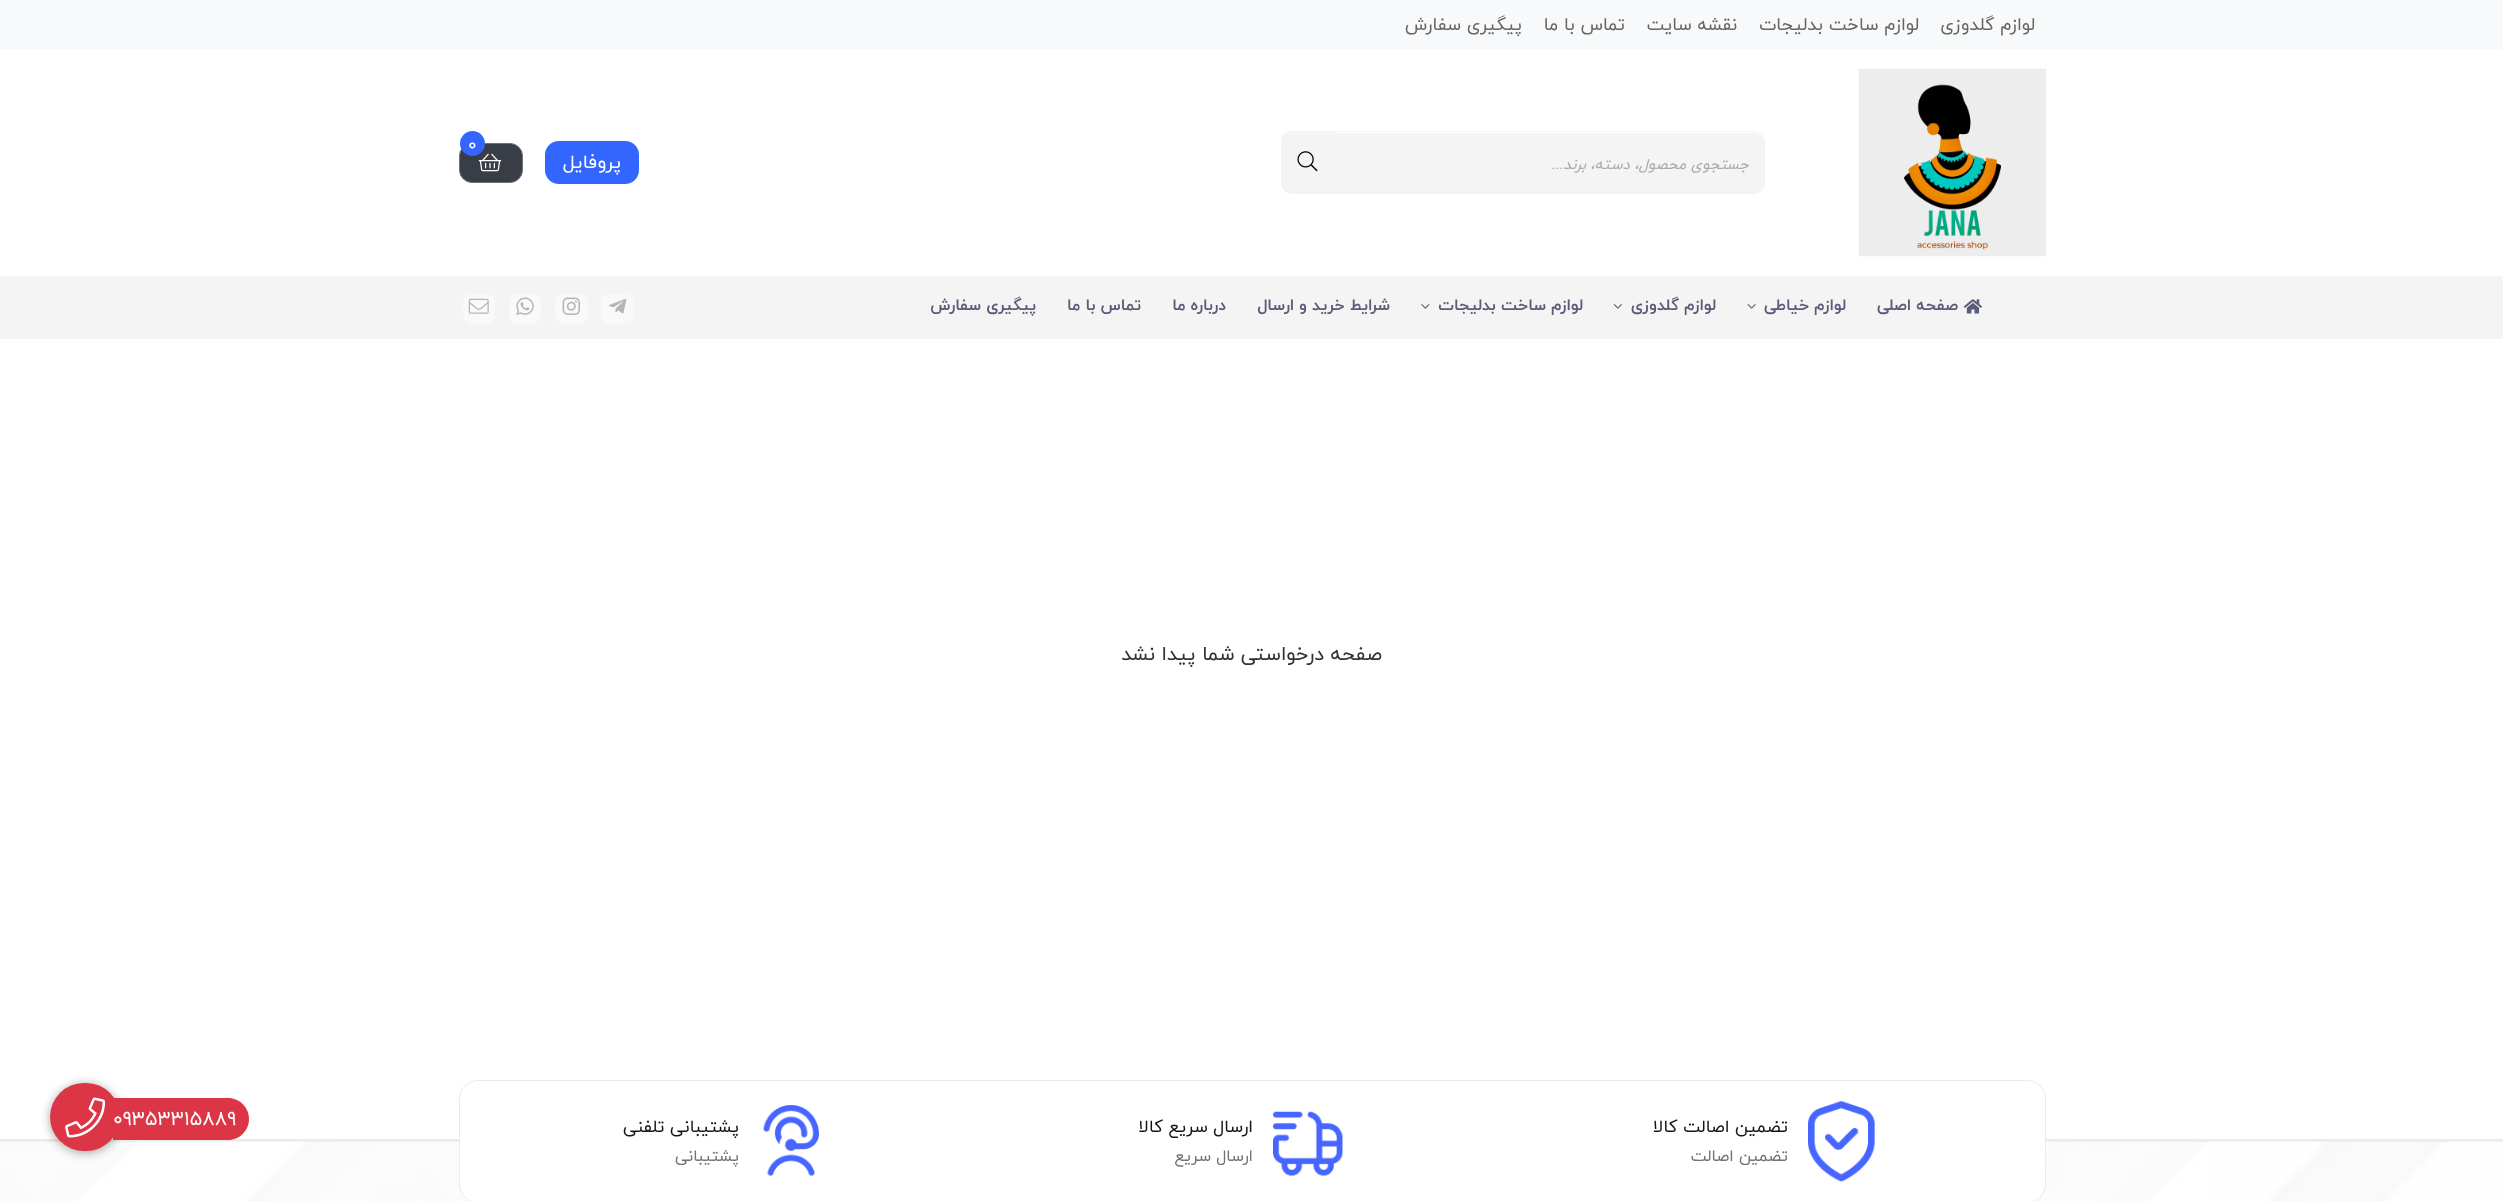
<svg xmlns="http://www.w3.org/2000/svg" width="2503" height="1201">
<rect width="100%" height="100%" fill="#fff"/>
<rect width="2503" height="49" fill="#f8f9fa"/>
<text x="2035" y="30" style="font-family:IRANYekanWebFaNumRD;font-size:18px;direction:rtl;fill:#666">لوازم گلدوزی</text>
<text x="1919" y="30" style="font-family:IRANYekanWebFaNumRD;font-size:18px;direction:rtl;fill:#666">لوازم ساخت بدلیجات</text>
<text x="1737" y="30" style="font-family:IRANYekanWebFaNumRD;font-size:18px;direction:rtl;fill:#666">نقشه سایت</text>
<text x="1625" y="30" style="font-family:IRANYekanWebFaNumRD;font-size:18px;direction:rtl;fill:#666">تماس با ما</text>
<text x="1522" y="30" style="font-family:IRANYekanWebFaNumRD;font-size:18px;direction:rtl;fill:#666">پیگیری سفارش</text>
<image x="1858" y="68" width="189" height="189" href="media/1.png"/>
<path d="M1334 133h420c5.5 0 10 4.5 10 10v40c0 5.5-4.5 10-10 10h-420z" fill="#f5f4f4"/>
<path d="M1333.5 131.5h420.5c6 0 10.5 4.5 10.5 10.5v41c0 6-4.5 10.5-10.5 10.5h-420.5z" fill="none" stroke="#f5f4f4"/>
<text x="1749" y="169" style="font-family:IRANYekanWebFaNumRD;font-size:15px;font-style:italic;direction:rtl;fill:#aaa">جستجوی محصول، دسته، برند...</text>
<path d="M1292 131.5h41.5v62h-41.5c-6 0-10.5-4.5-10.5-10.5v-41c0-6 4.5-10.5 10.5-10.5z" fill="#f5f4f4" stroke="#f5f4f4"/>
<image x="1297" y="151" width="21" height="21" href="media/2.png"/>
<rect x="459.5" y="143.5" width="63" height="39" rx="12.5" fill="#393e46" stroke="#69727d"/>
<image x="478" y="153" width="24" height="19" href="media/3.png"/>
<circle cx="472.5" cy="143.5" r="12.5" fill="#36f"/>
<text x="468" y="150" style="font-family:IRANYekanWebFaNumRD;font-size:17.5px;fill:#fff">0</text>
<rect x="545" y="141" width="94" height="43" rx="14" fill="#36f"/>
<text x="621" y="168" style="font-family:IRANYekanWebFaNumRD;font-size:19px;direction:rtl;fill:#fff">پروفایل</text>
<rect y="276" width="2503" height="63" fill="#f5f4f4"/>
<image x="1963" y="299" width="19" height="15" href="media/4.png"/>
<text x="1958" y="310" style="font-family:IRANYekanWebFaNumRD;font-size:16.25px;font-weight:bold;direction:rtl;fill:#5a5c7a">صفحه اصلی</text>
<text x="1846" y="310" style="font-family:IRANYekanWebFaNumRD;font-size:16.25px;font-weight:bold;direction:rtl;fill:#5a5c7a">لوازم خیاطی</text>
<image x="1747" y="304" width="9" height="5" href="media/5.png"/>
<text x="1716" y="310" style="font-family:IRANYekanWebFaNumRD;font-size:16.25px;font-weight:bold;direction:rtl;fill:#5a5c7a">لوازم گلدوزی</text>
<image x="1613" y="304" width="9" height="5" href="media/6.png"/>
<text x="1583" y="310" style="font-family:IRANYekanWebFaNumRD;font-size:16.25px;font-weight:bold;direction:rtl;fill:#5a5c7a">لوازم ساخت بدلیجات</text>
<image x="1421" y="304" width="9" height="5" href="media/7.png"/>
<text x="1390" y="310" style="font-family:IRANYekanWebFaNumRD;font-size:16.25px;font-weight:bold;direction:rtl;fill:#5a5c7a">شرایط خرید و ارسال</text>
<text x="1226" y="310" style="font-family:IRANYekanWebFaNumRD;font-size:16.25px;font-weight:bold;direction:rtl;fill:#5a5c7a">درباره ما</text>
<text x="1141" y="310" style="font-family:IRANYekanWebFaNumRD;font-size:16.25px;font-weight:bold;direction:rtl;fill:#5a5c7a">تماس با ما</text>
<text x="1036" y="310" style="font-family:IRANYekanWebFaNumRD;font-size:16.25px;font-weight:bold;direction:rtl;fill:#5a5c7a">پیگیری سفارش</text>
<rect x="601" y="294" width="33" height="30" rx="9" fill="#faf9f9"/>
<image x="608" y="298" width="19" height="16" href="media/8.png"/>
<rect x="555" y="294" width="33" height="30" rx="9" fill="#faf9f9"/>
<image x="562" y="297" width="18" height="18" href="media/9.png"/>
<rect x="509" y="294" width="32" height="30" rx="9" fill="#faf9f9"/>
<image x="516" y="297" width="18" height="18" href="media/10.png"/>
<rect x="463" y="294" width="32" height="30" rx="9" fill="#faf9f9"/>
<image x="468" y="298" width="21" height="16" href="media/11.png"/>
<text x="1382" y="660" style="font-family:IRANYekanWebFaNumRD;font-size:20px;direction:rtl;fill:#2d3436">صفحه درخواستی شما پیدا نشد</text>
<rect y="1139" width="2503" height="3" fill="#ebebeb"/>
<image x="0" y="1141" width="2503" height="60" href="media/12.png"/>
<rect x="459.5" y="1080.5" width="1586" height="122" rx="18.5" fill="#fff" stroke="#ebebeb"/>
<image x="1808" y="1101" width="67" height="81" href="media/13.png"/>
<text x="1788" y="1132" style="font-family:IRANYekanWebFaNumRD;font-size:17.5px;direction:rtl;fill:#151515">تضمین اصالت کالا</text>
<text x="1788" y="1161" style="font-family:IRANYekanWebFaNumRD;font-size:16.25px;direction:rtl;fill:#737373">تضمین اصالت</text>
<image x="1273" y="1111" width="70" height="65" href="media/14.png"/>
<text x="1253" y="1132" style="font-family:IRANYekanWebFaNumRD;font-size:17.5px;direction:rtl;fill:#151515">ارسال سریع کالا</text>
<text x="1253" y="1161" style="font-family:IRANYekanWebFaNumRD;font-size:16.25px;direction:rtl;fill:#737373">ارسال سریع</text>
<image x="763" y="1105" width="56" height="71" href="media/15.png"/>
<text x="739" y="1132" style="font-family:IRANYekanWebFaNumRD;font-size:17.5px;direction:rtl;fill:#151515">پشتیبانی تلفنی</text>
<text x="739" y="1161" style="font-family:IRANYekanWebFaNumRD;font-size:16.25px;direction:rtl;fill:#737373">پشتیبانی</text>
<rect x="50" y="1084" width="70" height="69" rx="34.5" fill="#00000026" filter="blur(6px)"/>
<rect x="50" y="1084" width="70" height="69" rx="34.5" fill="#00000033" filter="blur(4px)"/>
<rect x="50" y="1083" width="70" height="68" rx="34" fill="#dc3545"/>
<path d="M113 1098h115c11.5 0 21 9.5 21 21c0 11.5-9.5 21-21 21h-115z" fill="#dc3545"/>
<text x="113" y="1125" style="font-family:IRANYekanWebFaNumRD;font-size:20px;fill:#fff">09353315889</text>
<image x="65" y="1097" width="41" height="41" href="media/16.png"/>
</svg>
